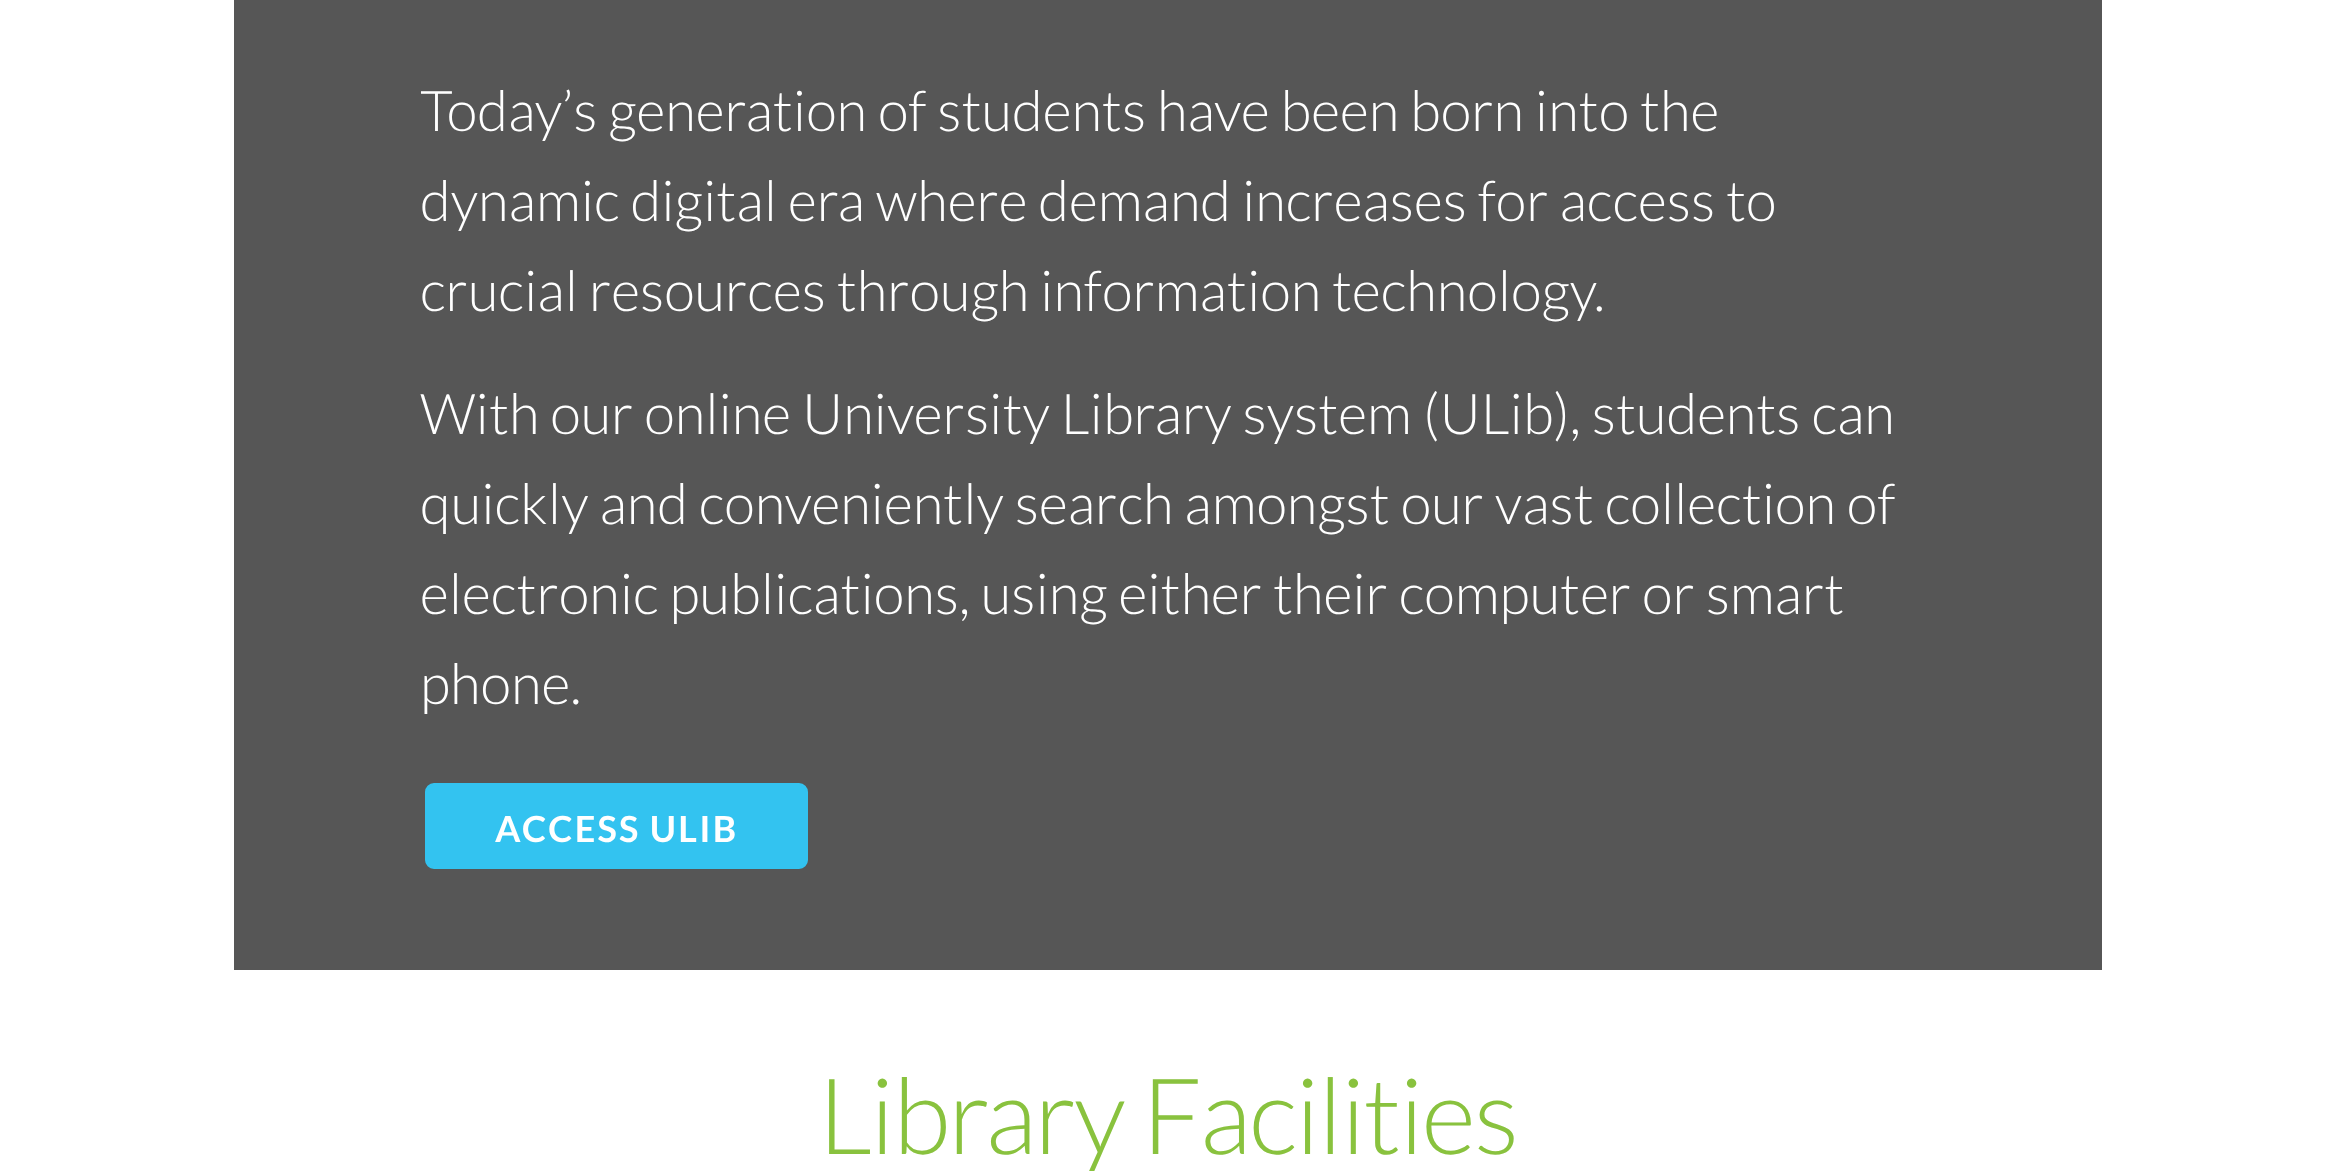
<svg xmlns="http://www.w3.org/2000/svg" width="2334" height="1171">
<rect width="100%" height="100%" fill="#fff"/>
<rect x="234" width="1868" height="970" fill="#565656"/>
<text x="420" y="131" style="font-family:Lato;font-size:56.25px;font-weight:300;fill:#fff">Today’s generation of students have been born into the</text>
<text x="420" y="221" style="font-family:Lato;font-size:56.25px;font-weight:300;fill:#fff">dynamic digital era where demand increases for access to</text>
<text x="420" y="311" style="font-family:Lato;font-size:56.25px;font-weight:300;fill:#fff">crucial resources through information technology.</text>
<text x="420" y="434" style="font-family:Lato;font-size:56.25px;font-weight:300;fill:#fff">With our online University Library system (ULib), students can</text>
<text x="420" y="524" style="font-family:Lato;font-size:56.25px;font-weight:300;fill:#fff">quickly and conveniently search amongst our vast collection of</text>
<text x="420" y="614" style="font-family:Lato;font-size:56.25px;font-weight:300;fill:#fff">electronic publications, using either their computer or smart</text>
<text x="420" y="704" style="font-family:Lato;font-size:56.25px;font-weight:300;fill:#fff">phone.</text>
<rect x="426" y="784" width="381" height="84" rx="8" fill="#33c3f0" stroke="#33c3f0" stroke-width="2"/>
<text x="495" y="842" style="font-family:Lato;font-size:36px;font-weight:bold;letter-spacing:2.25px;fill:#fff">ACCESS ULIB</text>
<text x="818" y="1154" style="font-family:Lato;font-size:105.75px;font-weight:300;letter-spacing:-2.25px;fill:#89c23e">Library Facilities</text>
</svg>
